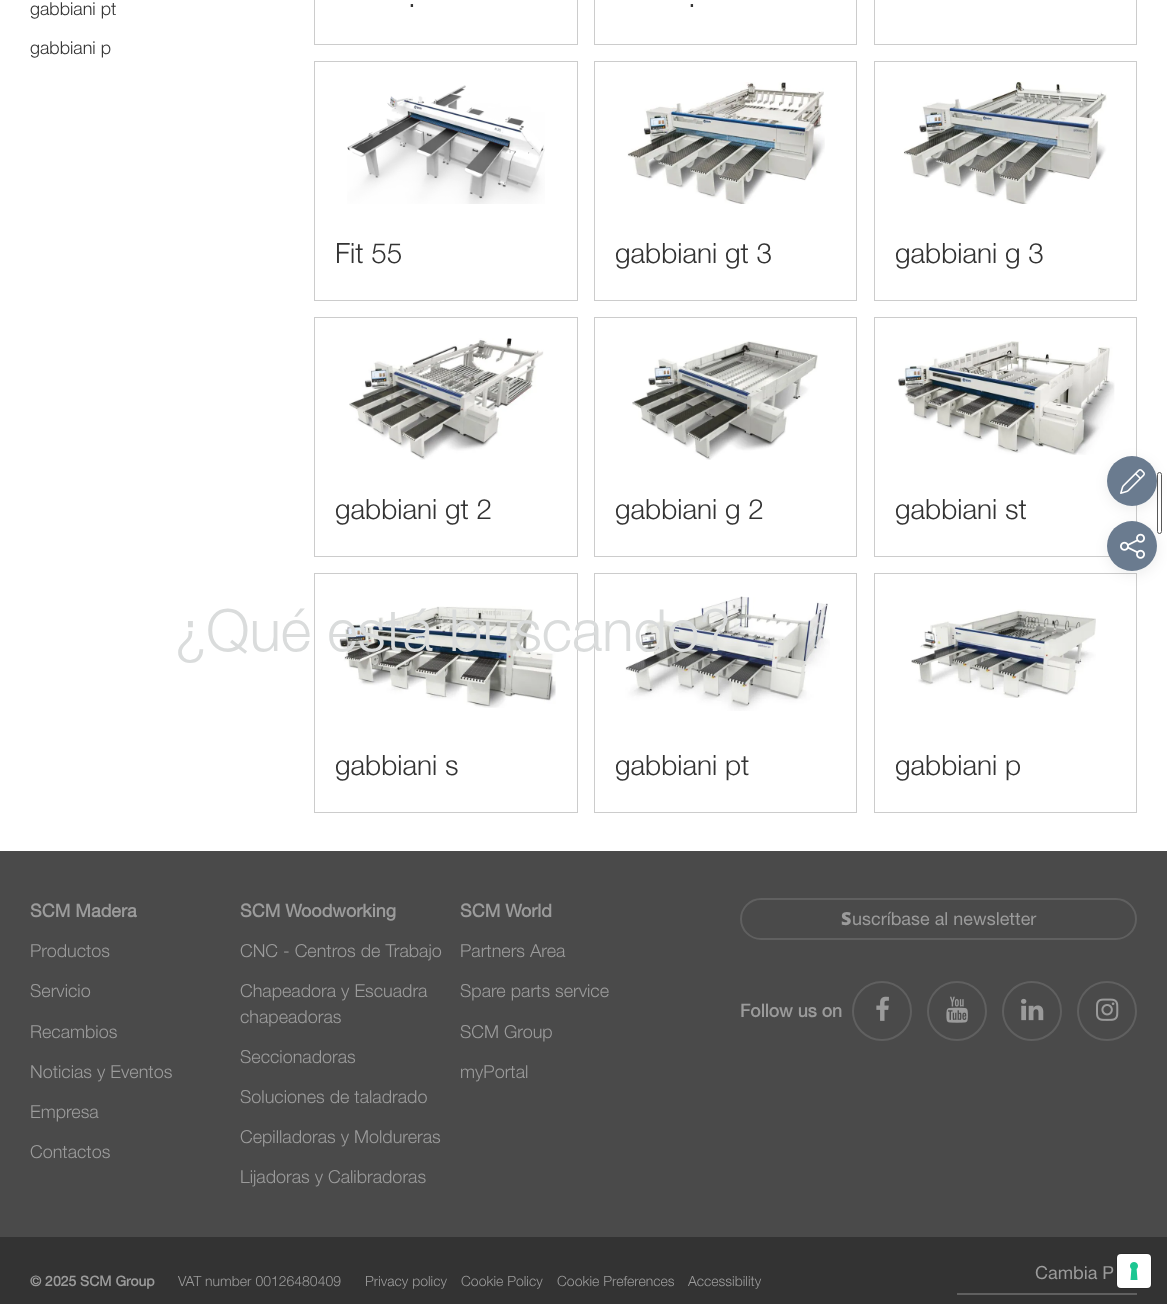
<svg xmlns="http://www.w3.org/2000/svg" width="1167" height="1304">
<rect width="100%" height="100%" fill="#fff"/>
<text x="30" y="15" style="font-family:Helvetica Neue;font-size:18px;font-weight:300;fill:#333">gabbiani pt</text>
<text x="30" y="54" style="font-family:Helvetica Neue;font-size:18px;font-weight:300;fill:#333">gabbiani p</text>
<rect x="314.5" y="-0.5" width="263" height="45" fill="none" stroke="#ccc"/>
<text x="408" y="7" style="font-family:Helvetica Neue;font-size:28px;font-weight:300;fill:#333">.</text>
<rect x="594.5" y="-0.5" width="262" height="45" fill="none" stroke="#ccc"/>
<text x="688" y="7" style="font-family:Helvetica Neue;font-size:28px;font-weight:300;fill:#333">.</text>
<rect x="874.5" y="-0.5" width="262" height="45" fill="none" stroke="#ccc"/>
<rect x="314.5" y="61.5" width="263" height="239" fill="none" stroke="#ccc"/>
<image x="347" y="85" width="198" height="119" href="media/1.png"/>
<text x="335" y="263" style="font-family:Helvetica Neue;font-size:28px;font-weight:300;fill:#333">Fit 55</text>
<rect x="594.5" y="61.5" width="262" height="239" fill="none" stroke="#ccc"/>
<image x="627" y="82" width="198" height="122" href="media/2.png"/>
<text x="615" y="263" style="font-family:Helvetica Neue;font-size:28px;font-weight:300;fill:#333">gabbiani gt 3</text>
<rect x="874.5" y="61.5" width="262" height="239" fill="none" stroke="#ccc"/>
<image x="903" y="82" width="204" height="122" href="media/3.png"/>
<text x="895" y="263" style="font-family:Helvetica Neue;font-size:28px;font-weight:300;fill:#333">gabbiani g 3</text>
<rect x="314.5" y="317.5" width="263" height="239" fill="none" stroke="#ccc"/>
<image x="349" y="338" width="195" height="122" href="media/4.png"/>
<text x="335" y="519" style="font-family:Helvetica Neue;font-size:28px;font-weight:300;fill:#333">gabbiani gt 2</text>
<rect x="594.5" y="317.5" width="262" height="239" fill="none" stroke="#ccc"/>
<image x="632" y="341" width="186" height="119" href="media/5.png"/>
<text x="615" y="519" style="font-family:Helvetica Neue;font-size:28px;font-weight:300;fill:#333">gabbiani g 2</text>
<rect x="874.5" y="317.5" width="262" height="239" fill="none" stroke="#ccc"/>
<image x="898" y="341" width="217" height="114" href="media/6.png"/>
<text x="895" y="519" style="font-family:Helvetica Neue;font-size:28px;font-weight:300;fill:#333">gabbiani st</text>
<rect x="314.5" y="573.5" width="263" height="239" fill="none" stroke="#ccc"/>
<image x="339" y="606" width="217" height="102" href="media/7.png"/>
<text x="335" y="775" style="font-family:Helvetica Neue;font-size:28px;font-weight:300;fill:#333">gabbiani s</text>
<rect x="594.5" y="573.5" width="262" height="239" fill="none" stroke="#ccc"/>
<image x="625" y="596" width="205" height="115" href="media/8.png"/>
<text x="615" y="775" style="font-family:Helvetica Neue;font-size:28px;font-weight:300;fill:#333">gabbiani pt</text>
<rect x="874.5" y="573.5" width="262" height="239" fill="none" stroke="#ccc"/>
<image x="911" y="609" width="185" height="89" href="media/9.png"/>
<text x="895" y="775" style="font-family:Helvetica Neue;font-size:28px;font-weight:300;fill:#333">gabbiani p</text>
<rect y="851" width="1167" height="386" fill="#4a4a4a"/>
<text x="30" y="917" style="font-family:Helvetica Neue;font-size:18px;font-weight:bold;fill:#9b9b9b">SCM Madera</text>
<text x="30" y="957" style="font-family:Helvetica Neue;font-size:18px;font-weight:300;fill:#9b9b9b">Productos</text>
<text x="30" y="997" style="font-family:Helvetica Neue;font-size:18px;font-weight:300;fill:#9b9b9b">Servicio</text>
<text x="30" y="1038" style="font-family:Helvetica Neue;font-size:18px;font-weight:300;fill:#9b9b9b">Recambios</text>
<text x="30" y="1078" style="font-family:Helvetica Neue;font-size:18px;font-weight:300;fill:#9b9b9b">Noticias y Eventos</text>
<text x="30" y="1118" style="font-family:Helvetica Neue;font-size:18px;font-weight:300;fill:#9b9b9b">Empresa</text>
<text x="30" y="1158" style="font-family:Helvetica Neue;font-size:18px;font-weight:300;fill:#9b9b9b">Contactos</text>
<text x="240" y="917" style="font-family:Helvetica Neue;font-size:18px;font-weight:bold;fill:#9b9b9b">SCM Woodworking</text>
<text x="240" y="957" style="font-family:Helvetica Neue;font-size:18px;font-weight:300;fill:#9b9b9b">CNC - Centros de Trabajo</text>
<text x="240" y="997" style="font-family:Helvetica Neue;font-size:18px;font-weight:300;fill:#9b9b9b">Chapeadora y Escuadra</text>
<text x="240" y="1023" style="font-family:Helvetica Neue;font-size:18px;font-weight:300;fill:#9b9b9b">chapeadoras</text>
<text x="240" y="1063" style="font-family:Helvetica Neue;font-size:18px;font-weight:300;fill:#9b9b9b">Seccionadoras</text>
<text x="240" y="1103" style="font-family:Helvetica Neue;font-size:18px;font-weight:300;fill:#9b9b9b">Soluciones de taladrado</text>
<text x="240" y="1143" style="font-family:Helvetica Neue;font-size:18px;font-weight:300;fill:#9b9b9b">Cepilladoras y Moldureras</text>
<text x="240" y="1183" style="font-family:Helvetica Neue;font-size:18px;font-weight:300;fill:#9b9b9b">Lijadoras y Calibradoras</text>
<text x="460" y="917" style="font-family:Helvetica Neue;font-size:18px;font-weight:bold;fill:#9b9b9b">SCM World</text>
<text x="460" y="957" style="font-family:Helvetica Neue;font-size:18px;font-weight:300;fill:#9b9b9b">Partners Area</text>
<text x="460" y="997" style="font-family:Helvetica Neue;font-size:18px;font-weight:300;fill:#9b9b9b">Spare parts service</text>
<text x="460" y="1038" style="font-family:Helvetica Neue;font-size:18px;font-weight:300;fill:#9b9b9b">SCM Group</text>
<text x="460" y="1078" style="font-family:Helvetica Neue;font-size:18px;font-weight:300;fill:#9b9b9b">myPortal</text>
<rect x="741" y="899" width="395" height="40" rx="20" fill="none" stroke="#606060" stroke-width="2"/>
<text x="841" y="925" style="font-family:Noto Sans;font-size:18px;font-weight:900;fill:#9b9b9b">S</text>
<text x="852" y="925" style="font-family:Helvetica Neue;font-size:18px;fill:#9b9b9b">uscríbase al newsletter</text>
<text x="740" y="1017" style="font-family:Helvetica Neue;font-size:18px;font-weight:bold;fill:#9b9b9b">Follow us on</text>
<circle cx="882" cy="1011" r="29" fill="none" stroke="#606060" stroke-width="2"/>
<image x="876" y="996" width="13" height="25" href="media/10.png"/>
<circle cx="957" cy="1011" r="29" fill="none" stroke="#606060" stroke-width="2"/>
<image x="946" y="996" width="22" height="27" href="media/11.png"/>
<circle cx="1032" cy="1011" r="29" fill="none" stroke="#606060" stroke-width="2"/>
<image x="1021" y="998" width="23" height="23" href="media/12.png"/>
<circle cx="1107" cy="1011" r="29" fill="none" stroke="#606060" stroke-width="2"/>
<image x="1096" y="998" width="23" height="23" href="media/13.png"/>
<rect y="1237" width="1167" height="67" fill="#333"/>
<rect x="957" y="1293" width="180" height="2" fill="#606060"/>
<text x="1035" y="1279" style="font-family:Helvetica Neue;font-size:18px;fill:#9b9b9b">Cambia P</text>
<text x="30" y="1286" style="font-family:Helvetica Neue;font-size:14px;font-weight:bold;fill:#9b9b9b">© 2025 SCM Group</text>
<text x="178" y="1286" style="font-family:Helvetica Neue;font-size:14px;font-weight:300;fill:#9b9b9b">VAT number 00126480409</text>
<text x="365" y="1286" style="font-family:Helvetica Neue;font-size:14px;font-weight:300;fill:#9b9b9b">Privacy policy</text>
<text x="461" y="1286" style="font-family:Helvetica Neue;font-size:14px;font-weight:300;fill:#9b9b9b">Cookie Policy</text>
<text x="557" y="1286" style="font-family:Helvetica Neue;font-size:14px;font-weight:300;fill:#9b9b9b">Cookie Preferences</text>
<text x="688" y="1286" style="font-family:Helvetica Neue;font-size:14px;font-weight:300;fill:#9b9b9b">Accessibility</text>
<text x="175" y="651" style="font-family:Helvetica Neue;font-size:58.25px;font-weight:300;fill:#dadcdc">¿Qué está buscando?</text>
<rect x="1157.5" y="472.5" width="4" height="61" rx="2" fill="none" stroke="#595959"/>
<rect x="1108" y="460" width="49" height="49" rx="24.5" fill="#00081014" filter="blur(7px)"/>
<circle cx="1132" cy="481" r="25" fill="#6a7b8f"/>
<image x="1120" y="469" width="25" height="25" href="media/14.png"/>
<rect x="1108" y="525" width="49" height="49" rx="24.5" fill="#00081014" filter="blur(7px)"/>
<circle cx="1132" cy="546" r="25" fill="#6a7b8f"/>
<image x="1120" y="533" width="25" height="26" href="media/15.png"/>
<rect x="1116.5" y="1253.5" width="35" height="35" rx="4.5" fill="none" stroke="#00000026"/>
<rect x="1117" y="1254" width="34" height="34" rx="4" fill="#fff"/>
<image x="1130" y="1262" width="8" height="18" href="media/16.png"/>
</svg>
